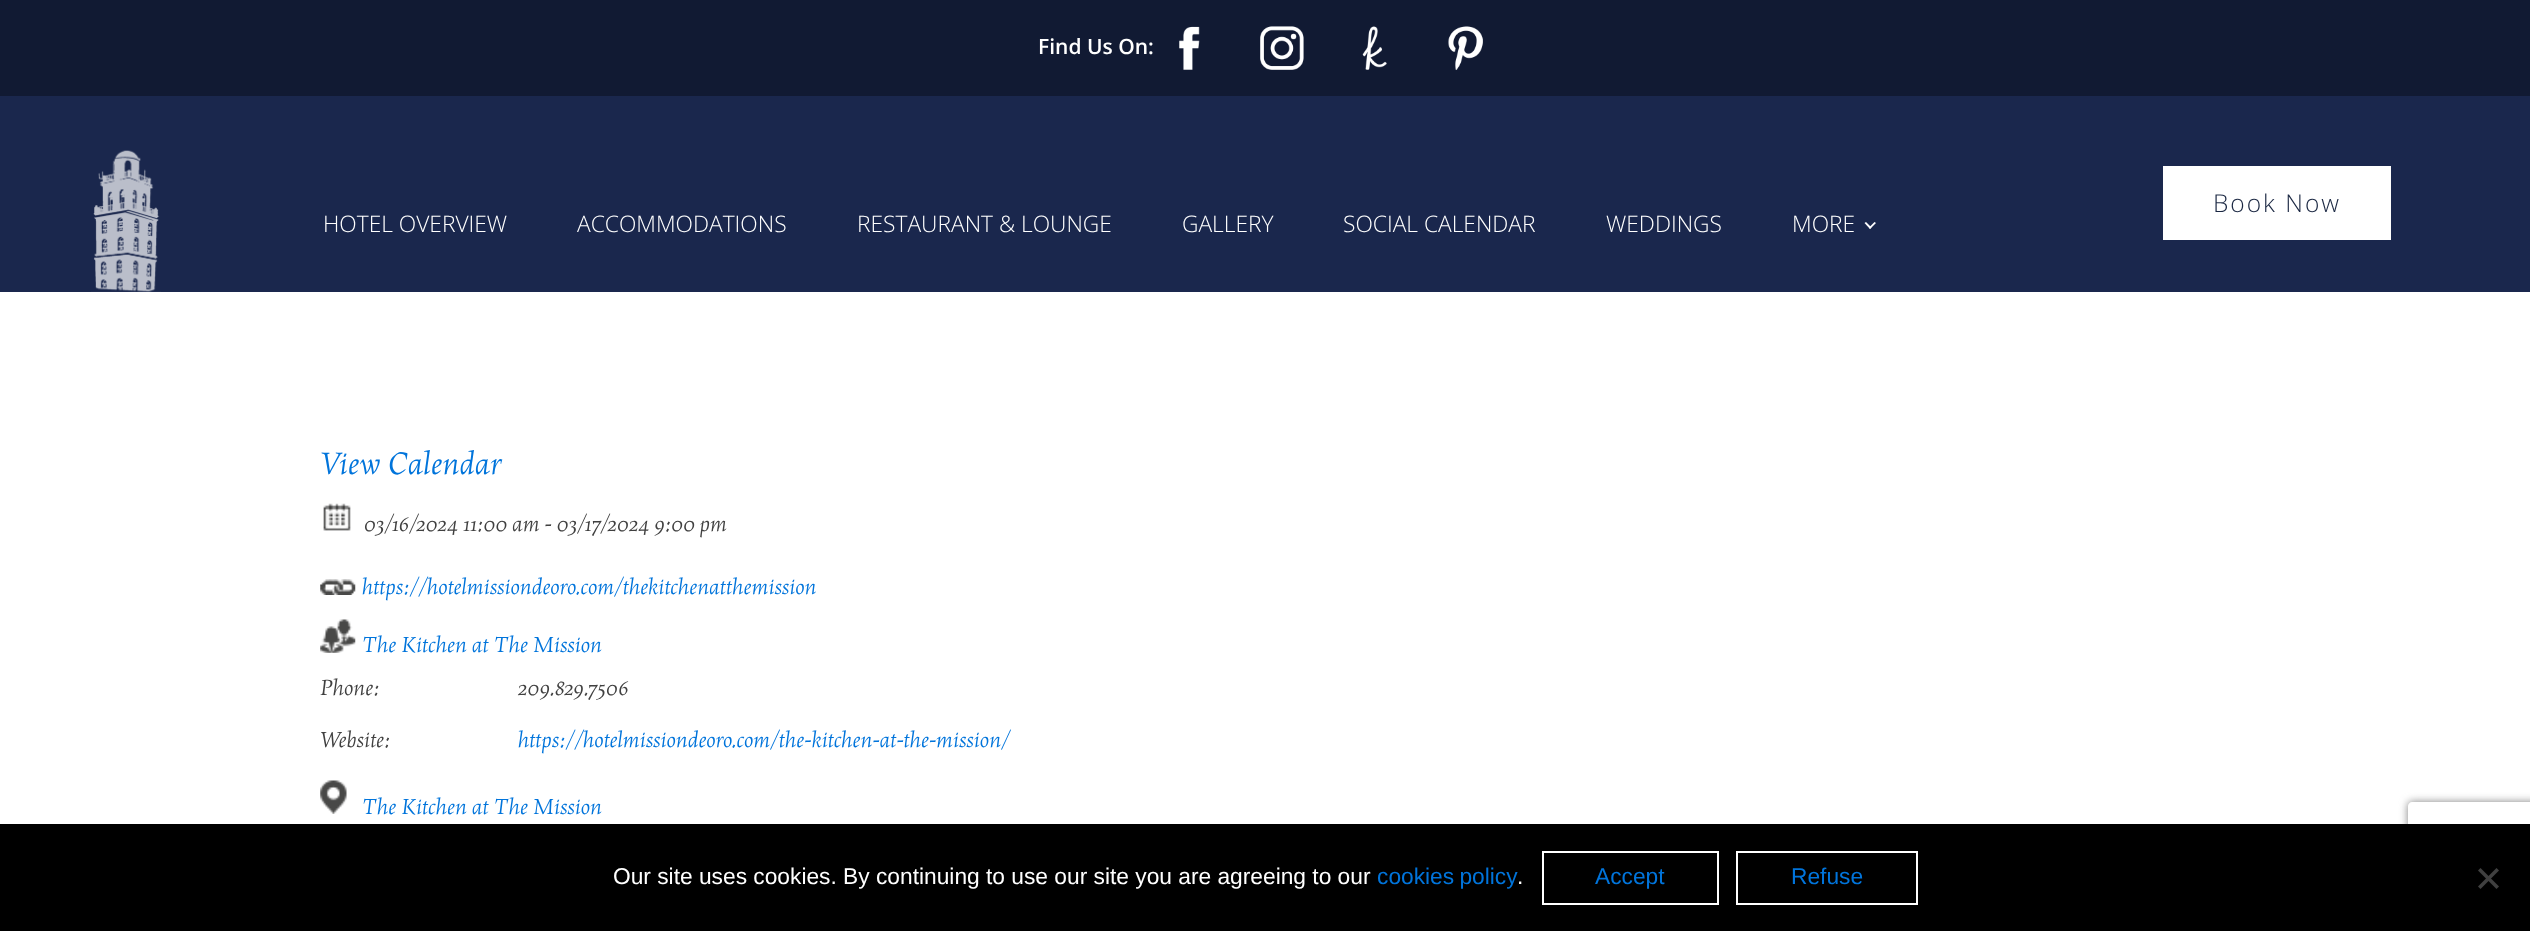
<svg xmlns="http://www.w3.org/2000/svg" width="2530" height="931">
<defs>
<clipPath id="clip1"><path d="M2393 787h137v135h-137zm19 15h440c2 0 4 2 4 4v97c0 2-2 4-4 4h-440c-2 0-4-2-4-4v-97c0-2 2-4 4-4z" clip-rule="evenodd"/></clipPath>
</defs>
<rect width="100%" height="100%" fill="#fff"/>
<rect width="2530" height="96" fill="#111a33"/>
<text x="1038" y="54" style="font-family:Open Sans;font-size:21px;font-weight:600;fill:#fff">Find Us On:</text>
<image x="1179" y="26" width="21" height="44" href="media/1.png"/>
<image x="1260" y="26" width="44" height="44" href="media/2.png"/>
<image x="1362" y="26" width="25" height="44" href="media/3.png"/>
<image x="1448" y="26" width="35" height="44" href="media/4.png"/>
<rect y="96" width="2530" height="196" fill="#1a274d"/>
<image x="91" y="150" width="70" height="142" href="media/5.png"/>
<rect x="2163" y="166" width="228" height="74" fill="#fff"/>
<text x="2213" y="212" style="font-family:Open Sans;font-size:24.5px;font-weight:300;letter-spacing:2px;fill:#1a2742">Book Now</text>
<text x="323" y="232" style="font-family:Open Sans;font-size:22.75px;font-weight:300;fill:#fff">HOTEL OVERVIEW</text>
<text x="577" y="232" style="font-family:Open Sans;font-size:22.75px;font-weight:300;fill:#fff">ACCOMMODATIONS</text>
<text x="857" y="232" style="font-family:Open Sans;font-size:22.75px;font-weight:300;fill:#fff">RESTAURANT &amp; LOUNGE</text>
<text x="1182" y="232" style="font-family:Open Sans;font-size:22.75px;font-weight:300;fill:#fff">GALLERY</text>
<text x="1343" y="232" style="font-family:Open Sans;font-size:22.75px;font-weight:300;fill:#fff">SOCIAL CALENDAR</text>
<text x="1606" y="232" style="font-family:Open Sans;font-size:22.75px;font-weight:300;fill:#fff">WEDDINGS</text>
<text x="1792" y="232" style="font-family:Open Sans;font-size:22.75px;font-weight:300;fill:#fff">MORE</text>
<path d="M1876 223l-6 6l-1-1.5l5.5-5.5z" fill="#fff"/>
<path d="M1871.5 227.5l-1.5 1.5l-5.5-6l1.5-1z" fill="#fff"/>
<text x="320" y="474" style="font-family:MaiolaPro;font-size:35px;font-style:italic;fill:#0074db">View Calendar</text>
<image x="323" y="503" width="28" height="28" href="media/6.png"/>
<text x="364" y="531" style="font-family:MaiolaPro;font-size:24.5px;font-style:italic;fill:#404040">03/16/2024 11:00 am - 03/17/2024 9:00 pm</text>
<image x="320" y="579" width="36" height="16" href="media/7.png"/>
<text x="362" y="594" style="font-family:MaiolaPro;font-size:24.5px;font-style:italic;fill:#0074db">https://hotelmissiondeoro.com/thekitchenatthemission</text>
<image x="320" y="619" width="36" height="34" href="media/8.png"/>
<text x="362" y="652" style="font-family:MaiolaPro;font-size:24.5px;font-style:italic;fill:#0074db">The Kitchen at The Mission</text>
<text x="320" y="695" style="font-family:MaiolaPro;font-size:24.5px;font-style:italic;fill:#404040">Phone:</text>
<text x="518" y="695" style="font-family:MaiolaPro;font-size:24.5px;font-style:italic;fill:#404040">209.829.7506</text>
<text x="320" y="747" style="font-family:MaiolaPro;font-size:24.5px;font-style:italic;fill:#404040">Website:</text>
<text x="518" y="747" style="font-family:MaiolaPro;font-size:24.5px;font-style:italic;fill:#0074db">https://hotelmissiondeoro.com/the-kitchen-at-the-mission/</text>
<image x="320" y="780" width="27" height="34" href="media/9.png"/>
<text x="362" y="814" style="font-family:MaiolaPro;font-size:24.5px;font-style:italic;fill:#0074db">The Kitchen at The Mission</text>
<g clip-path="url(#clip1)">
<rect x="2408" y="802" width="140" height="105" rx="4" fill="#808080" filter="blur(4.5px)"/>
</g>
<rect y="824" width="2530" height="107" fill="#000"/>
<text x="613" y="884" style="font-family:Liberation Sans;font-size:22.75px;fill:#fff">Our site uses cookies. By continuing to use our site you are agreeing to our</text>
<text x="1377" y="884" word-spacing="-1" style="font-family:Liberation Sans;font-size:22.75px;fill:#0074db">cookies policy</text>
<text x="1517" y="884" style="font-family:Liberation Sans;font-size:22.75px;fill:#fff">.</text>
<rect x="1543" y="852" width="175" height="52" fill="none" stroke="#fff" stroke-width="2"/>
<text x="1595" y="884" style="font-family:Liberation Sans;font-size:22.75px;fill:#0074db">Accept</text>
<rect x="1737" y="852" width="180" height="52" fill="none" stroke="#fff" stroke-width="2"/>
<text x="1791" y="884" style="font-family:Liberation Sans;font-size:22.75px;fill:#0074db">Refuse</text>
<path d="M2496.5 868l2.5 2.5l-18.5 18.5l-2.5-2.5z" fill="#404040"/>
<path d="M2478 870.5l2.5-2.5l18.5 18.5l-2.5 2.5z" fill="#404040"/>
</svg>
